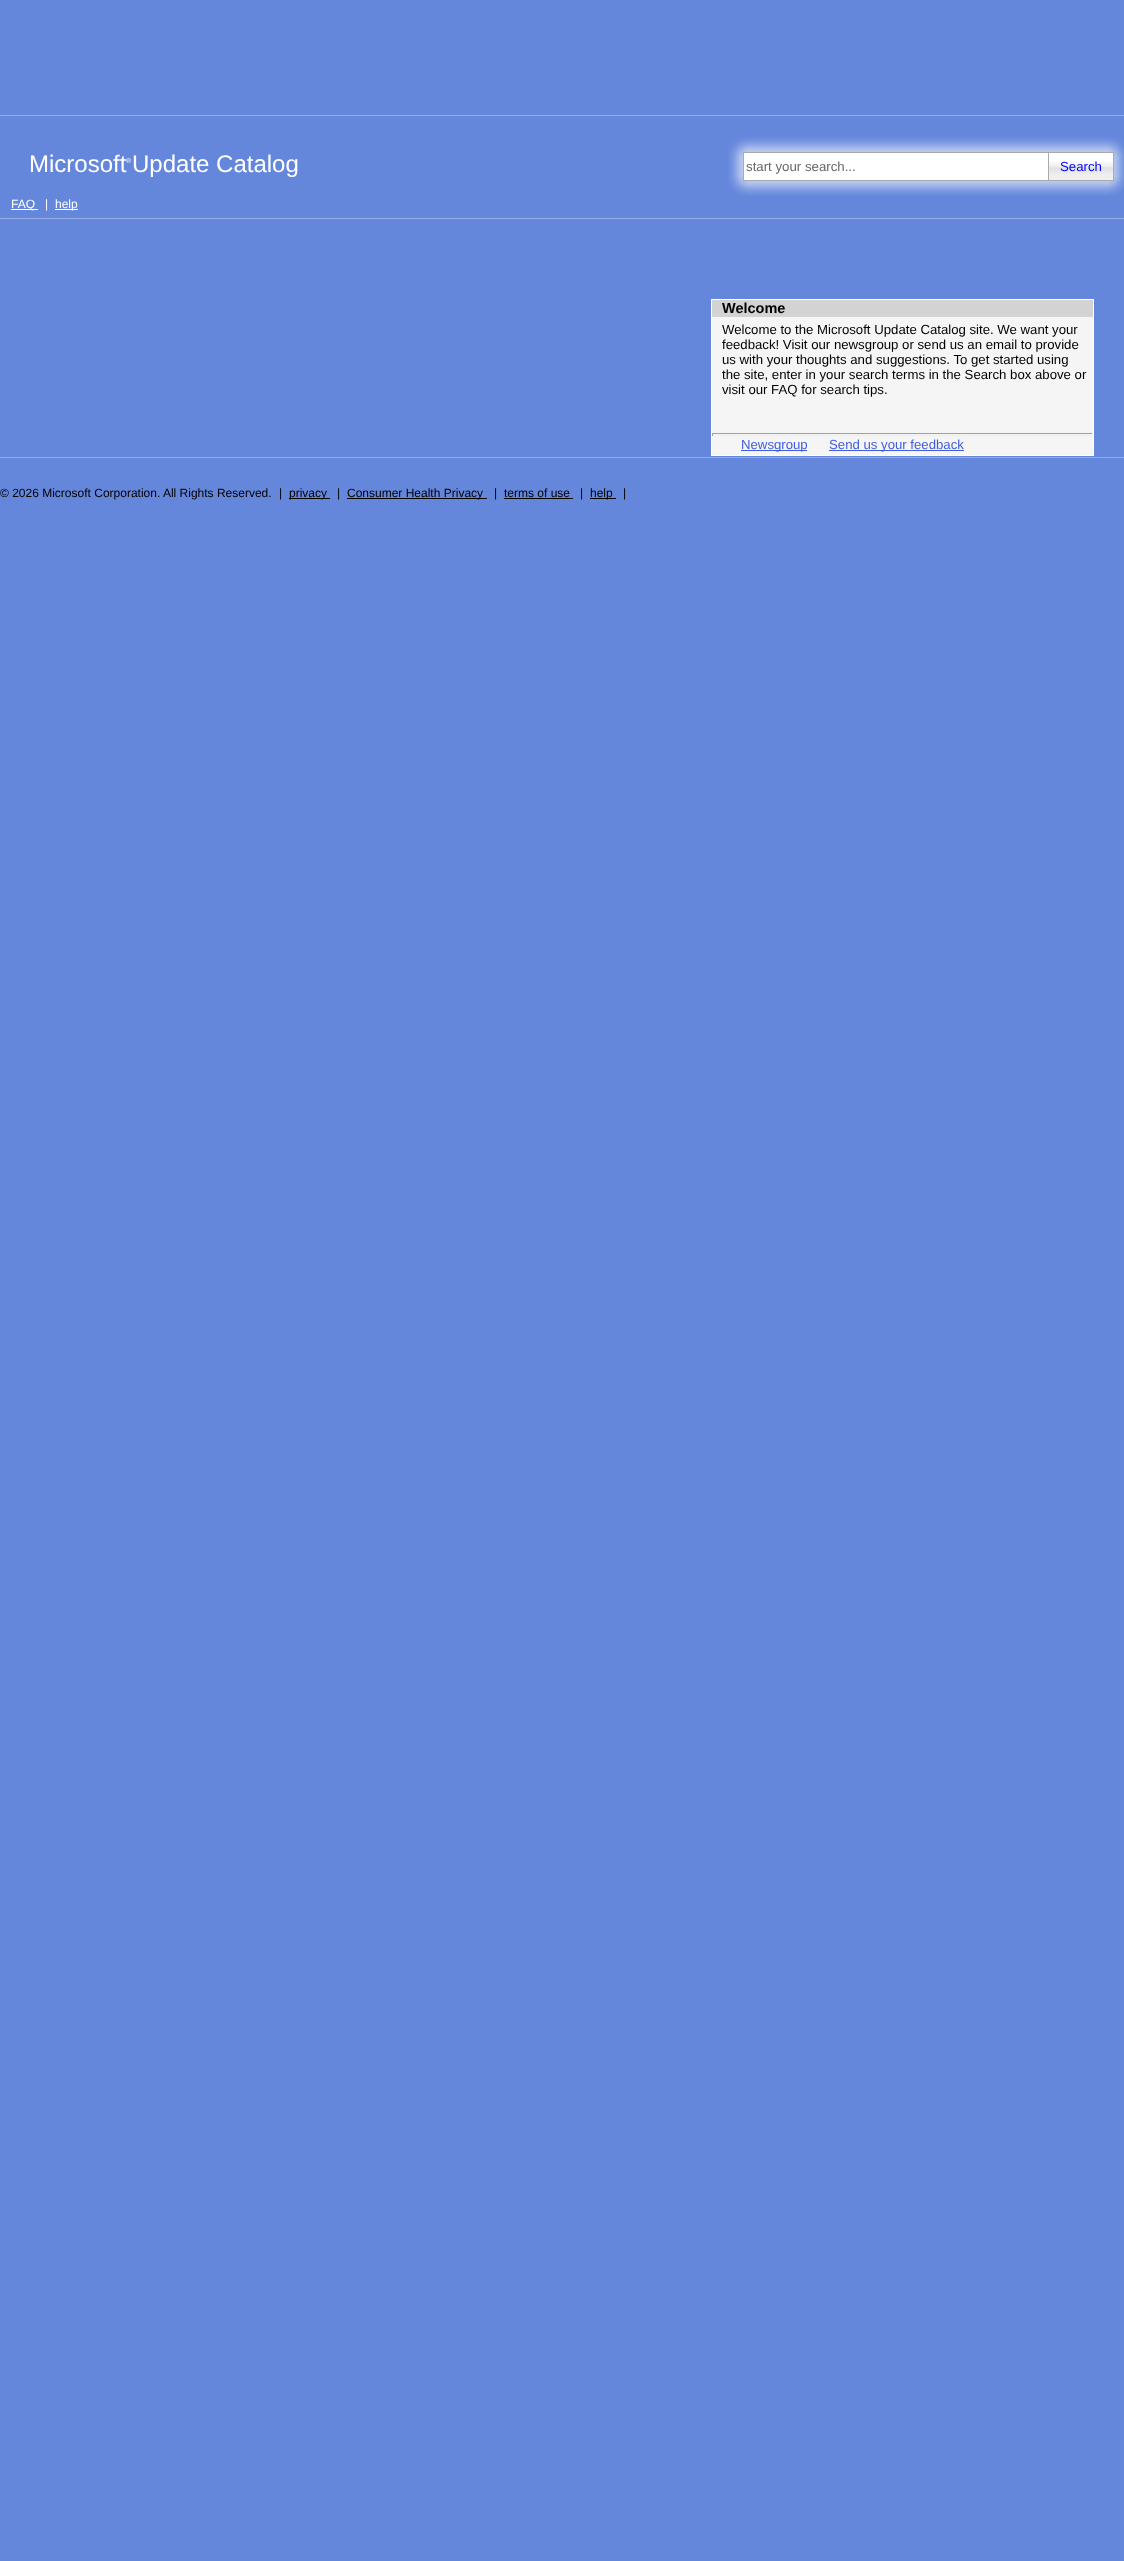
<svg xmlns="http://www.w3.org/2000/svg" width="1124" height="2561">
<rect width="100%" height="100%" fill="#6487dc"/>
<rect y="115" width="1124" height="1" fill="#94ace8"/>
<rect y="218" width="1124" height="1" fill="#94ace8"/>
<text x="29" y="172" style="font-family:Liberation Sans;font-size:24px;fill:#fff">Microsoft</text>
<text x="126" y="163" style="font-family:Liberation Sans;font-size:7px;fill:#fff">®</text>
<text x="132" y="172" style="font-family:Liberation Sans;font-size:24px;fill:#fff">Update Catalog</text>
<rect x="11" y="209" width="27" height="1" fill="#fff"/>
<text x="11" y="208" style="font-family:Liberation Sans;font-size:12px;fill:#fff">FAQ</text>
<text x="45" y="208" style="font-family:Liberation Sans;font-size:12px;fill:#fff">|</text>
<rect x="55" y="209" width="23" height="1" fill="#fff"/>
<text x="55" y="208" style="font-family:Liberation Sans;font-size:12px;fill:#fff">help</text>
<image x="748" y="137" width="360" height="15" href="media/1.png"/>
<image x="727" y="137" width="21" height="15" href="media/2.png"/>
<image x="1108" y="137" width="16" height="15" href="media/3.png"/>
<image x="728" y="152" width="15" height="15" href="media/4.png"/>
<image x="732" y="152" width="11" height="4" href="media/5.png"/>
<rect x="744" y="153" width="304" height="27" fill="#fff"/>
<rect x="743" y="152" width="305" height="1" fill="#aaa"/>
<rect x="743" y="180" width="305" height="1" fill="#aaa"/>
<rect x="743" y="152" width="1" height="29" fill="#aaa"/>
<text x="746" y="171" style="font-family:Liberation Sans;font-size:13.25px;fill:#666">start your search...</text>
<image x="1049" y="153" width="64" height="27" href="media/6.png"/>
<rect x="1048.5" y="152.5" width="65" height="28" fill="none" stroke="#aaa"/>
<text x="1060" y="171" style="font-family:Liberation Sans;font-size:13.25px;fill:#00f">Search</text>
<image x="1114" y="156" width="10" height="11" href="media/7.png"/>
<image x="1114" y="152" width="10" height="4" href="media/8.png"/>
<image x="728" y="167" width="15" height="14" href="media/9.png"/>
<image x="732" y="177" width="11" height="4" href="media/10.png"/>
<image x="1114" y="167" width="10" height="10" href="media/11.png"/>
<image x="1114" y="177" width="10" height="4" href="media/12.png"/>
<image x="748" y="181" width="360" height="15" href="media/13.png"/>
<image x="727" y="181" width="21" height="15" href="media/14.png"/>
<image x="1108" y="181" width="16" height="15" href="media/15.png"/>
<rect x="712" y="317" width="381" height="138" fill="#f5f5f5"/>
<rect x="711.5" y="299.5" width="382" height="156" fill="none" stroke="#fff"/>
<rect x="712" y="300" width="381" height="17" fill="#d3d3d3"/>
<text x="722" y="313" style="font-family:Liberation Sans;font-size:14.5px;font-weight:bold;fill:#000">Welcome</text>
<text x="722" y="334" style="font-family:Liberation Sans;font-size:13.2px;fill:#000">Welcome to the Microsoft Update Catalog site. We want your</text>
<text x="722" y="349" style="font-family:Liberation Sans;font-size:13.2px;fill:#000">feedback! Visit our newsgroup or send us an email to provide</text>
<text x="722" y="364" style="font-family:Liberation Sans;font-size:13.2px;fill:#000">us with your thoughts and suggestions. To get started using</text>
<text x="722" y="379" style="font-family:Liberation Sans;font-size:13.2px;fill:#000">the site, enter in your search terms in the Search box above or</text>
<text x="722" y="394" style="font-family:Liberation Sans;font-size:13.2px;fill:#000">visit our FAQ for search tips.</text>
<rect x="712" y="433" width="381" height="1" fill="#9f9f9f"/>
<rect x="1092" y="433" width="1" height="3" fill="#eee"/>
<rect x="712" y="435" width="381" height="1" fill="#eee"/>
<rect x="712" y="433" width="1" height="3" fill="#9f9f9f"/>
<rect x="741" y="450" width="66" height="1" fill="#415be1"/>
<text x="741" y="449" style="font-family:Liberation Sans;font-size:13.2px;fill:#415be1">Newsgroup</text>
<rect x="829" y="450" width="135" height="1" fill="#415be1"/>
<text x="829" y="449" style="font-family:Liberation Sans;font-size:13.2px;fill:#415be1">Send us your feedback</text>
<rect y="457" width="1124" height="1" fill="#94ace8"/>
<text x="0" y="497" style="font-family:Liberation Sans;font-size:12px;fill:#000">© 2026 Microsoft Corporation. All Rights Reserved.</text>
<text x="279" y="497" style="font-family:Liberation Sans;font-size:12px;fill:#000">|</text>
<rect x="289" y="498" width="41" height="1" fill="#000"/>
<text x="289" y="497" style="font-family:Liberation Sans;font-size:12px;fill:#000">privacy</text>
<text x="337" y="497" style="font-family:Liberation Sans;font-size:12px;fill:#000">|</text>
<rect x="347" y="498" width="136" height="1" fill="#000"/>
<text x="347" y="497" style="font-family:Liberation Sans;font-size:12px;fill:#000">Consumer Health Privacy</text>
<rect x="483" y="498" width="4" height="1" fill="#000"/>
<text x="494" y="497" style="font-family:Liberation Sans;font-size:12px;fill:#000">|</text>
<text x="504" y="497" style="font-family:Liberation Sans;font-size:12px;fill:#000">terms of use</text>
<rect x="504" y="498" width="69" height="1" fill="#000"/>
<text x="580" y="497" style="font-family:Liberation Sans;font-size:12px;fill:#000">|</text>
<rect x="590" y="498" width="26" height="1" fill="#000"/>
<text x="590" y="497" style="font-family:Liberation Sans;font-size:12px;fill:#000">help</text>
<text x="623" y="497" style="font-family:Liberation Sans;font-size:12px;fill:#000">|</text>
</svg>
